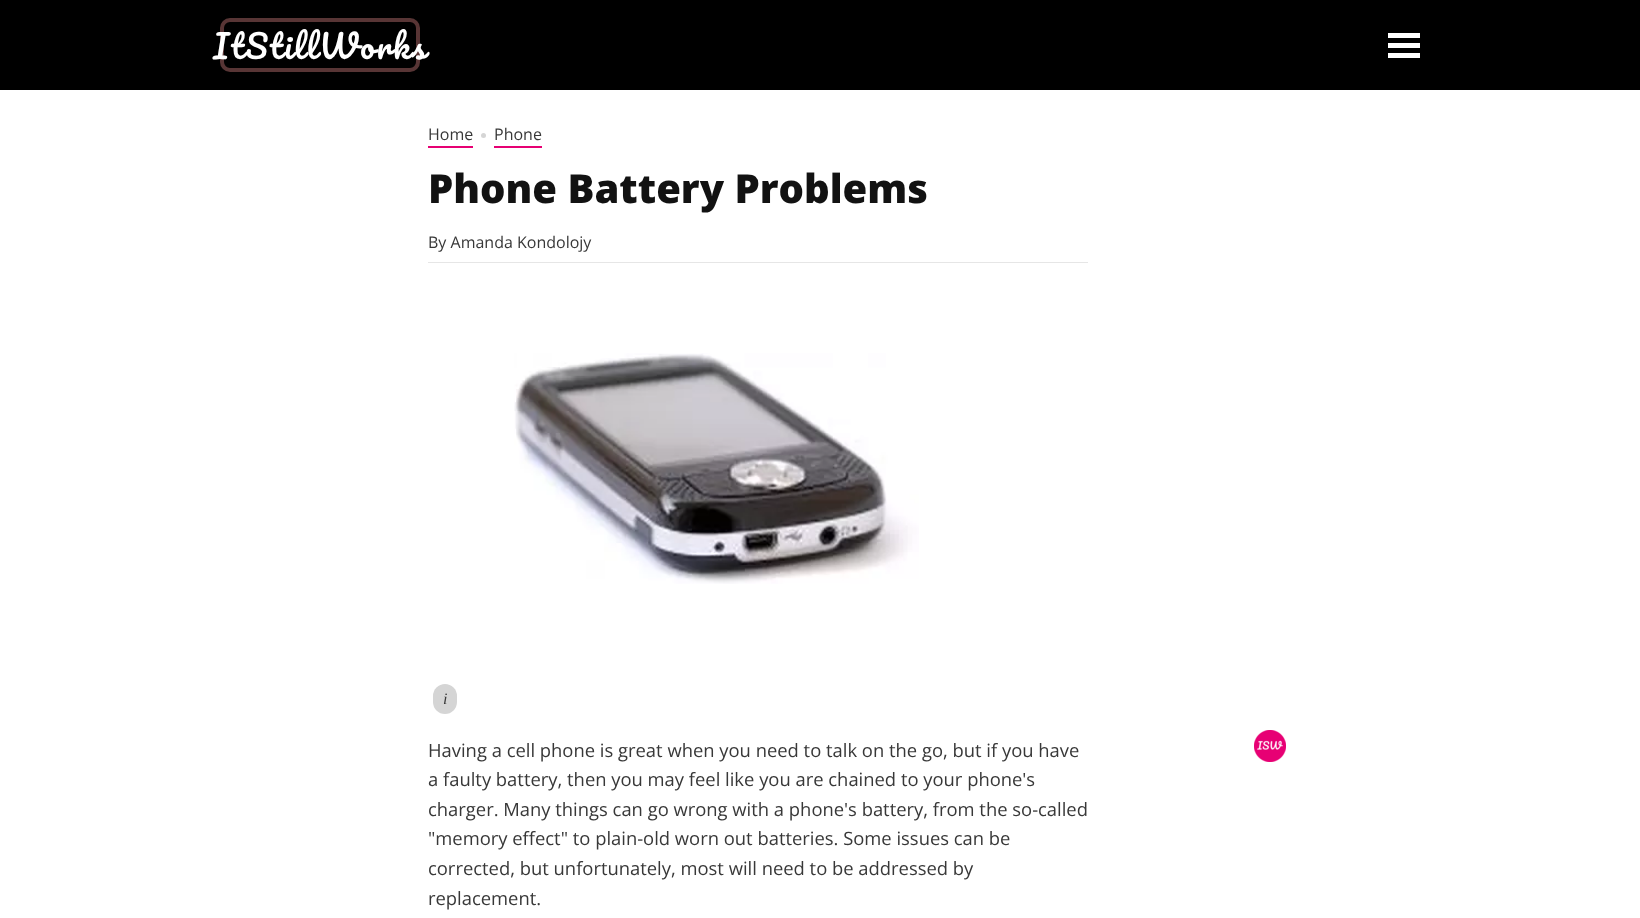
<svg xmlns="http://www.w3.org/2000/svg" width="1640" height="918">
<style>*{font-kerning:none!important;font-variant-ligatures:none!important}</style>
<rect width="100%" height="100%" fill="#fff"/>
<rect width="1640" height="90" fill="#000"/>
<rect x="222" y="20" width="196" height="50" rx="8" fill="none" stroke="#583535" stroke-width="4"/>
<text x="213" y="59" style="font-family:Pacifico;font-size:32px;letter-spacing:2px;fill:#fff">ItStill</text>
<text x="319" y="59" style="font-family:Pacifico;font-size:32px;letter-spacing:2px;fill:#fff">Works</text>
<rect x="1388" y="33" width="32" height="5" fill="#fff"/>
<rect x="1388" y="43" width="32" height="5" fill="#fff"/>
<rect x="1388" y="53" width="32" height="5" fill="#fff"/>
<rect x="428" y="262" width="660" height="1" fill="#e6e6e6"/>
<rect x="428" y="146" width="45" height="2" fill="#e60073"/>
<text x="428" y="140" style="font-family:Open Sans;font-size:16px;fill:#383838">Home</text>
<circle cx="483.5" cy="135.5" r="2.5" fill="#d5d5d5"/>
<rect x="494" y="146" width="48" height="2" fill="#e60073"/>
<text x="494" y="140" style="font-family:Open Sans;font-size:16px;fill:#383838">Phone</text>
<text x="428" y="203" style="font-family:Open Sans;font-size:40px;font-weight:800;fill:#121212">Phone Battery Problems</text>
<text x="428" y="248" style="font-family:Open Sans;font-size:16px;fill:#383838">By Amanda Kondolojy</text>
<image x="514" y="353" width="405" height="231" href="media/1.png"/>
<rect x="433" y="684" width="24" height="30" rx="12" fill="#d5d5d5"/>
<text x="443" y="704" style="font-family:Liberation Serif;font-size:16px;font-style:italic;fill:#383838">i</text>
<text x="428" y="757" style="font-family:Open Sans;font-size:18.4px;fill:#383838">Having a cell phone is great when you need to talk on the go, but if you have</text>
<text x="428" y="786" style="font-family:Open Sans;font-size:18.4px;fill:#383838">a faulty battery, then you may feel like you are chained to your phone's</text>
<text x="428" y="816" style="font-family:Open Sans;font-size:18.4px;fill:#383838">charger. Many things can go wrong with a phone's battery, from the so-called</text>
<text x="428" y="845" style="font-family:Open Sans;font-size:18.4px;fill:#383838">"memory effect" to plain-old worn out batteries. Some issues can be</text>
<text x="428" y="875" style="font-family:Open Sans;font-size:18.4px;fill:#383838">corrected, but unfortunately, most will need to be addressed by</text>
<text x="428" y="905" style="font-family:Open Sans;font-size:18.4px;fill:#383838">replacement.</text>
<image x="1254" y="730" width="32" height="32" href="media/2.png"/>
</svg>
